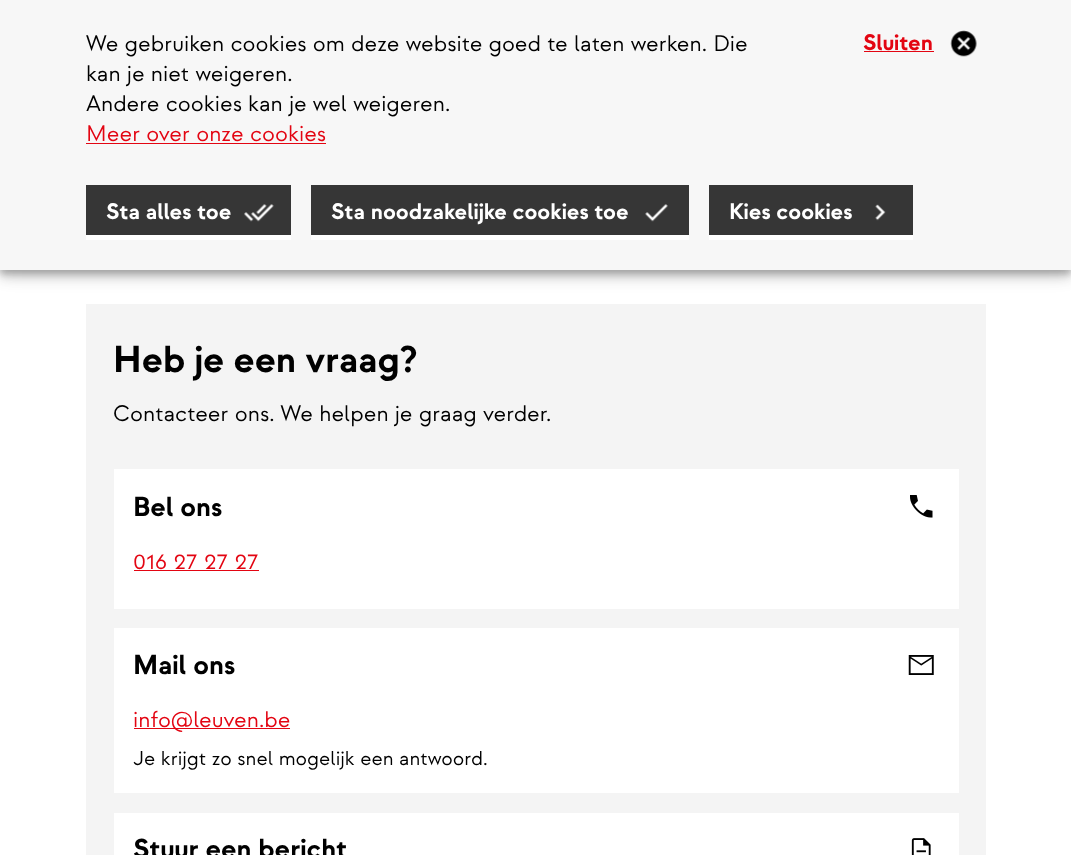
<svg xmlns="http://www.w3.org/2000/svg" width="1071" height="855">
<rect width="100%" height="100%" fill="#fff"/>
<rect y="8" width="1071" height="270" fill="#00000024" filter="blur(6px)"/>
<rect x="86" y="304" width="900" height="551" fill="#f4f4f4"/>
<rect y="1" width="1071" height="270" fill="#0000001f" filter="blur(11px)"/>
<rect y="4" width="1071" height="270" fill="#00000033" filter="blur(3px)"/>
<rect width="1071" height="270" fill="#f7f7f7"/>
<text x="86" y="51" style="font-family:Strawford;font-size:22.5px;fill:#000">We gebruiken cookies om deze website goed te laten werken. Die</text>
<text x="86" y="81" style="font-family:Strawford;font-size:22.5px;fill:#000">kan je niet weigeren.</text>
<text x="86" y="111" style="font-family:Strawford;font-size:22.5px;fill:#000">Andere cookies kan je wel weigeren.</text>
<text x="86" y="141" style="font-family:Strawford;font-size:22.5px;fill:#e30512">Meer over onze cookies</text>
<rect x="86" y="143" width="240" height="1" fill="#e30512"/>
<text x="863" y="50" style="font-family:Strawford;font-size:22.5px;font-weight:bold;fill:#e30512">Sluiten</text>
<rect x="864" y="51" width="70" height="1" fill="#e30512"/>
<image x="950" y="30" width="27" height="27" href="media/1.png"/>
<rect x="86" y="185" width="205" height="50" fill="#363636"/>
<rect x="86" y="235" width="205" height="5" fill="#fff"/>
<text x="106" y="219" style="font-family:Strawford;font-size:22.5px;font-weight:bold;fill:#fff">Sta alles toe</text>
<image x="244" y="204" width="30" height="18" href="media/2.png"/>
<rect x="311" y="185" width="378" height="50" fill="#363636"/>
<rect x="311" y="235" width="378" height="5" fill="#fff"/>
<text x="331" y="219" style="font-family:Strawford;font-size:22.5px;font-weight:bold;fill:#fff">Sta noodzakelijke cookies toe</text>
<image x="645" y="204" width="23" height="18" href="media/3.png"/>
<rect x="709" y="185" width="204" height="50" fill="#363636"/>
<rect x="709" y="235" width="204" height="5" fill="#fff"/>
<text x="729" y="219" style="font-family:Strawford;font-size:22.5px;font-weight:bold;fill:#fff">Kies cookies</text>
<image x="875" y="204" width="11" height="17" href="media/4.png"/>
<text x="113" y="372" style="font-family:Strawford;font-size:37.5px;font-weight:bold;fill:#000">Heb je een vraag?</text>
<text x="113" y="421" style="font-family:Strawford;font-size:22.5px;fill:#000">Contacteer ons. We helpen je graag verder.</text>
<rect x="114" y="469" width="845" height="140" fill="#fff"/>
<text x="133" y="516" style="font-family:Strawford;font-size:27.5px;font-weight:bold;fill:#000">Bel ons</text>
<image x="910" y="495" width="23" height="23" href="media/5.png"/>
<text x="133" y="569" style="font-family:Strawford;font-size:22.5px;fill:#e30512">016 27 27 27</text>
<rect x="134" y="570" width="125" height="1" fill="#e30512"/>
<rect x="114" y="628" width="845" height="165" fill="#fff"/>
<text x="133" y="674" style="font-family:Strawford;font-size:27.5px;font-weight:bold;fill:#000">Mail ons</text>
<image x="908" y="655" width="26" height="20" href="media/6.png"/>
<rect x="134" y="728" width="156" height="1" fill="#e30512"/>
<text x="133" y="727" style="font-family:Strawford;font-size:22.5px;fill:#e30512">info@leuven.be</text>
<text x="133" y="765" style="font-family:Strawford;font-size:20px;fill:#000">Je krijgt zo snel mogelijk een antwoord.</text>
<rect x="114" y="813" width="845" height="42" fill="#fff"/>
<text x="133" y="858" style="font-family:Strawford;font-size:27.5px;font-weight:bold;fill:#000">Stuur een bericht</text>
<image x="911" y="838" width="20" height="17" href="media/7.png"/>
</svg>
